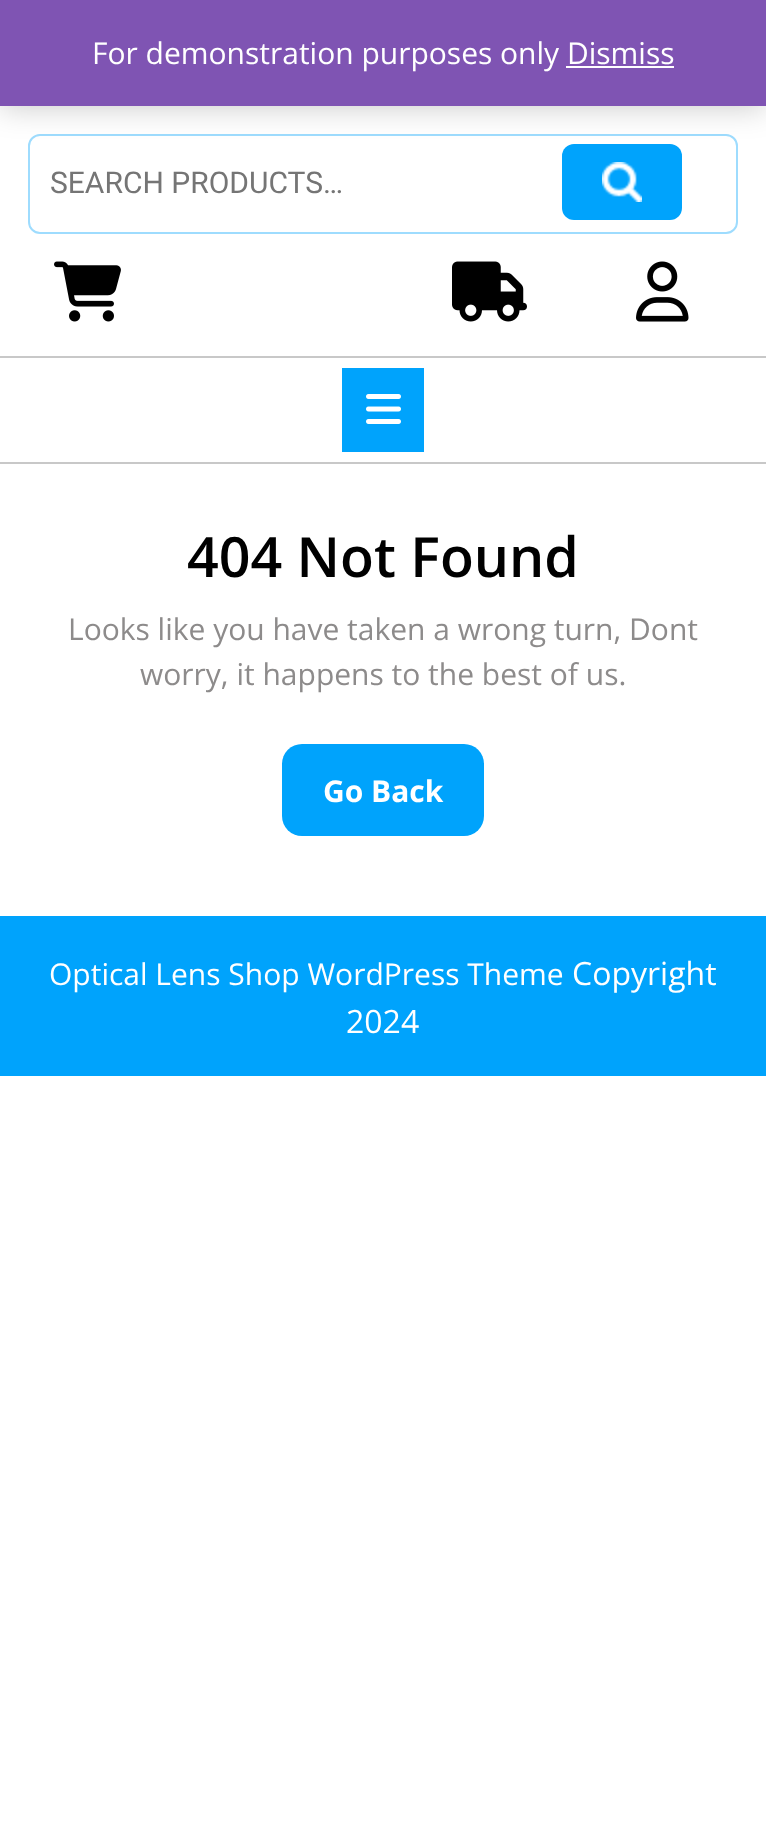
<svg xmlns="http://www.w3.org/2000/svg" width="766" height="1847">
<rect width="100%" height="100%" fill="#fff"/>
<rect x="29" y="135" width="708" height="98" rx="11" fill="none" stroke="#9edcfe" stroke-width="2"/>
<rect x="562" y="144" width="120" height="76" rx="12" fill="#00a3fc"/>
<rect y="2" width="766" height="106" fill="#00000033" filter="blur(15px)"/>
<rect width="766" height="106" fill="#7f54b3"/>
<text x="92" y="64" style="font-family:Open Sans;font-size:30px;fill:#fff">For demonstration purposes only Dismiss</text>
<rect x="566" y="66" width="108" height="2" fill="#fff"/>
<rect y="462" width="766" height="2" fill="#c8c8c8"/>
<rect y="356" width="766" height="2" fill="#c8c8c8"/>
<text x="50" y="193" style="font-family:Roboto;font-size:30px;fill:#757575">SEARCH PRODUCTS…</text>
<image x="602" y="162" width="40" height="40" href="media/1.png"/>
<image x="54" y="261" width="67" height="61" href="media/2.png"/>
<image x="452" y="261" width="75" height="61" href="media/3.png"/>
<image x="636" y="261" width="53" height="61" href="media/4.png"/>
<rect x="342" y="368" width="82" height="84" fill="#00a3fc"/>
<image x="366" y="394" width="35" height="30" href="media/5.png"/>
<text x="187" y="577" style="font-family:Open Sans;font-size:55.5px;font-weight:600;fill:#000">404 Not Found</text>
<text x="68" y="640" style="font-family:Open Sans;font-size:30px;fill:#8d8b8b">Looks like you have taken a wrong turn, Dont</text>
<text x="140" y="685" style="font-family:Open Sans;font-size:30px;fill:#8d8b8b">worry, it happens to the best of us.</text>
<rect x="282" y="744" width="202" height="92" rx="20" fill="#00a3fc"/>
<text x="323" y="802" style="font-family:Open Sans;font-size:30px;font-weight:bold;fill:#fff">Go Back</text>
<rect y="916" width="766" height="160" fill="#00a3fc"/>
<text x="49" y="985" style="font-family:Open Sans;font-size:30px;fill:#fff">Optical Lens Shop WordPress Theme</text>
<text x="572" y="985" style="font-family:Open Sans;font-size:32px;fill:#fff">Copyright</text>
<text x="346" y="1033" style="font-family:Open Sans;font-size:32px;fill:#fff">2024</text>
</svg>
